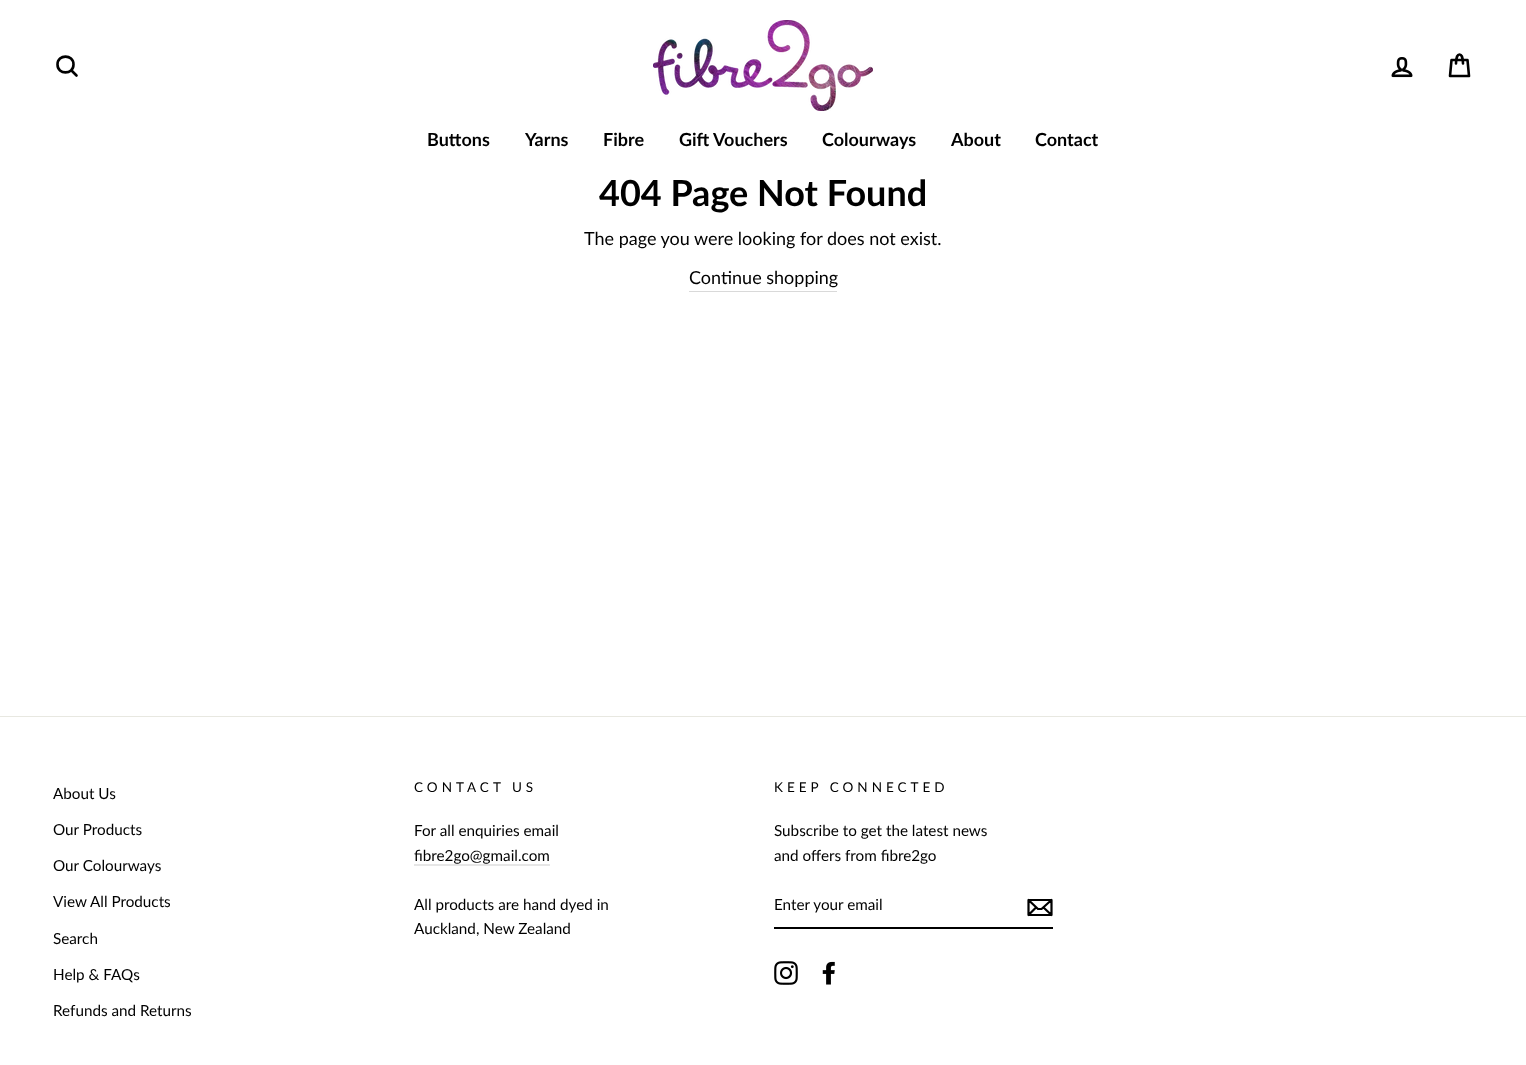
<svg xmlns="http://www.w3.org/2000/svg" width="1526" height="1065">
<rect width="100%" height="100%" fill="#fff"/>
<path d="M73.5 64.5c0 10.5-16 10.5-16 0c0-10.5 16-10.5 16 0zm3 11l-5-5" fill="none" stroke="#000" stroke-width="2.6" stroke-linecap="round" stroke-linejoin="round"/>
<image x="653" y="20" width="220" height="91" href="media/1.png"/>
<image x="1391" y="57" width="22" height="21" href="media/2.png"/>
<path d="M1456 63.5c0-12 7-12 7 0m-11.5-3.5h16l1.5 16h-19z" fill="none" stroke="#000" stroke-width="2.6" stroke-linecap="round" stroke-linejoin="round"/>
<text x="427" y="146" style="font-family:Lato;font-size:18px;font-weight:bold;fill:#000">Buttons</text>
<text x="525" y="146" style="font-family:Lato;font-size:18px;font-weight:bold;fill:#000">Yarns</text>
<text x="603" y="146" style="font-family:Lato;font-size:18px;font-weight:bold;fill:#000">Fibre</text>
<text x="679" y="146" style="font-family:Lato;font-size:18px;font-weight:bold;fill:#000">Gift Vouchers</text>
<text x="822" y="146" style="font-family:Lato;font-size:18px;font-weight:bold;fill:#000">Colourways</text>
<text x="951" y="146" style="font-family:Lato;font-size:18px;font-weight:bold;fill:#000">About</text>
<text x="1035" y="146" style="font-family:Lato;font-size:18px;font-weight:bold;fill:#000">Contact</text>
<text x="599" y="206" style="font-family:Lato;font-size:36px;font-weight:bold;fill:#000">404 Page Not Found</text>
<text x="584" y="245" style="font-family:Lato;font-size:18px;fill:#000">The page you were looking for does not exist.</text>
<rect x="689" y="291" width="148" height="1" fill="#d9d9d9"/>
<text x="689" y="284" style="font-family:Lato;font-size:18px;fill:#000">Continue shopping</text>
<rect y="716" width="1526" height="1" fill="#e8e8e1"/>
<text x="53" y="799" style="font-family:Lato;font-size:15.25px;fill:#000">About Us</text>
<text x="53" y="835" style="font-family:Lato;font-size:15.25px;fill:#000">Our Products</text>
<text x="53" y="871" style="font-family:Lato;font-size:15.25px;fill:#000">Our Colourways</text>
<text x="53" y="907" style="font-family:Lato;font-size:15.25px;fill:#000">View All Products</text>
<text x="53" y="944" style="font-family:Lato;font-size:15.25px;fill:#000">Search</text>
<text x="53" y="980" style="font-family:Lato;font-size:15.25px;fill:#000">Help &amp; FAQs</text>
<text x="53" y="1016" style="font-family:Lato;font-size:15.25px;fill:#000">Refunds and Returns</text>
<text x="414" y="792" style="font-family:Lato;font-size:13.5px;letter-spacing:4px;fill:#000">CONTACT US</text>
<text x="414" y="836" style="font-family:Lato;font-size:15.25px;fill:#000">For all enquiries email</text>
<text x="414" y="861" style="font-family:Lato;font-size:15.25px;fill:#000">fibre2go@gmail.com</text>
<rect x="414" y="864" width="136" height="2" fill="#e6e6e6"/>
<text x="414" y="910" style="font-family:Lato;font-size:15.25px;fill:#000">All products are hand dyed in</text>
<text x="414" y="934" style="font-family:Lato;font-size:15.25px;fill:#000">Auckland, New Zealand</text>
<text x="774" y="792" style="font-family:Lato;font-size:13.5px;letter-spacing:4px;fill:#000">KEEP CONNECTED</text>
<text x="774" y="836" style="font-family:Lato;font-size:15.25px;fill:#000">Subscribe to get the latest news</text>
<text x="774" y="861" style="font-family:Lato;font-size:15.25px;fill:#000">and offers from fibre2go</text>
<rect x="774" y="927" width="279" height="2" fill="#000"/>
<text x="774" y="910" style="font-family:Lato;font-size:15.25px;fill:#000">Enter your email</text>
<path d="M1051.5 915h-23v-15h23zm-23-15l9.5 9h3.5l10-9m-15.5 7.5l-7.5 7.5m23 0l-8-7.5" fill="none" stroke="#000" stroke-width="2.2" stroke-linecap="round" stroke-linejoin="round"/>
<image x="774" y="961" width="24" height="24" href="media/3.png"/>
<image x="822" y="961" width="13" height="24" href="media/4.png"/>
</svg>
